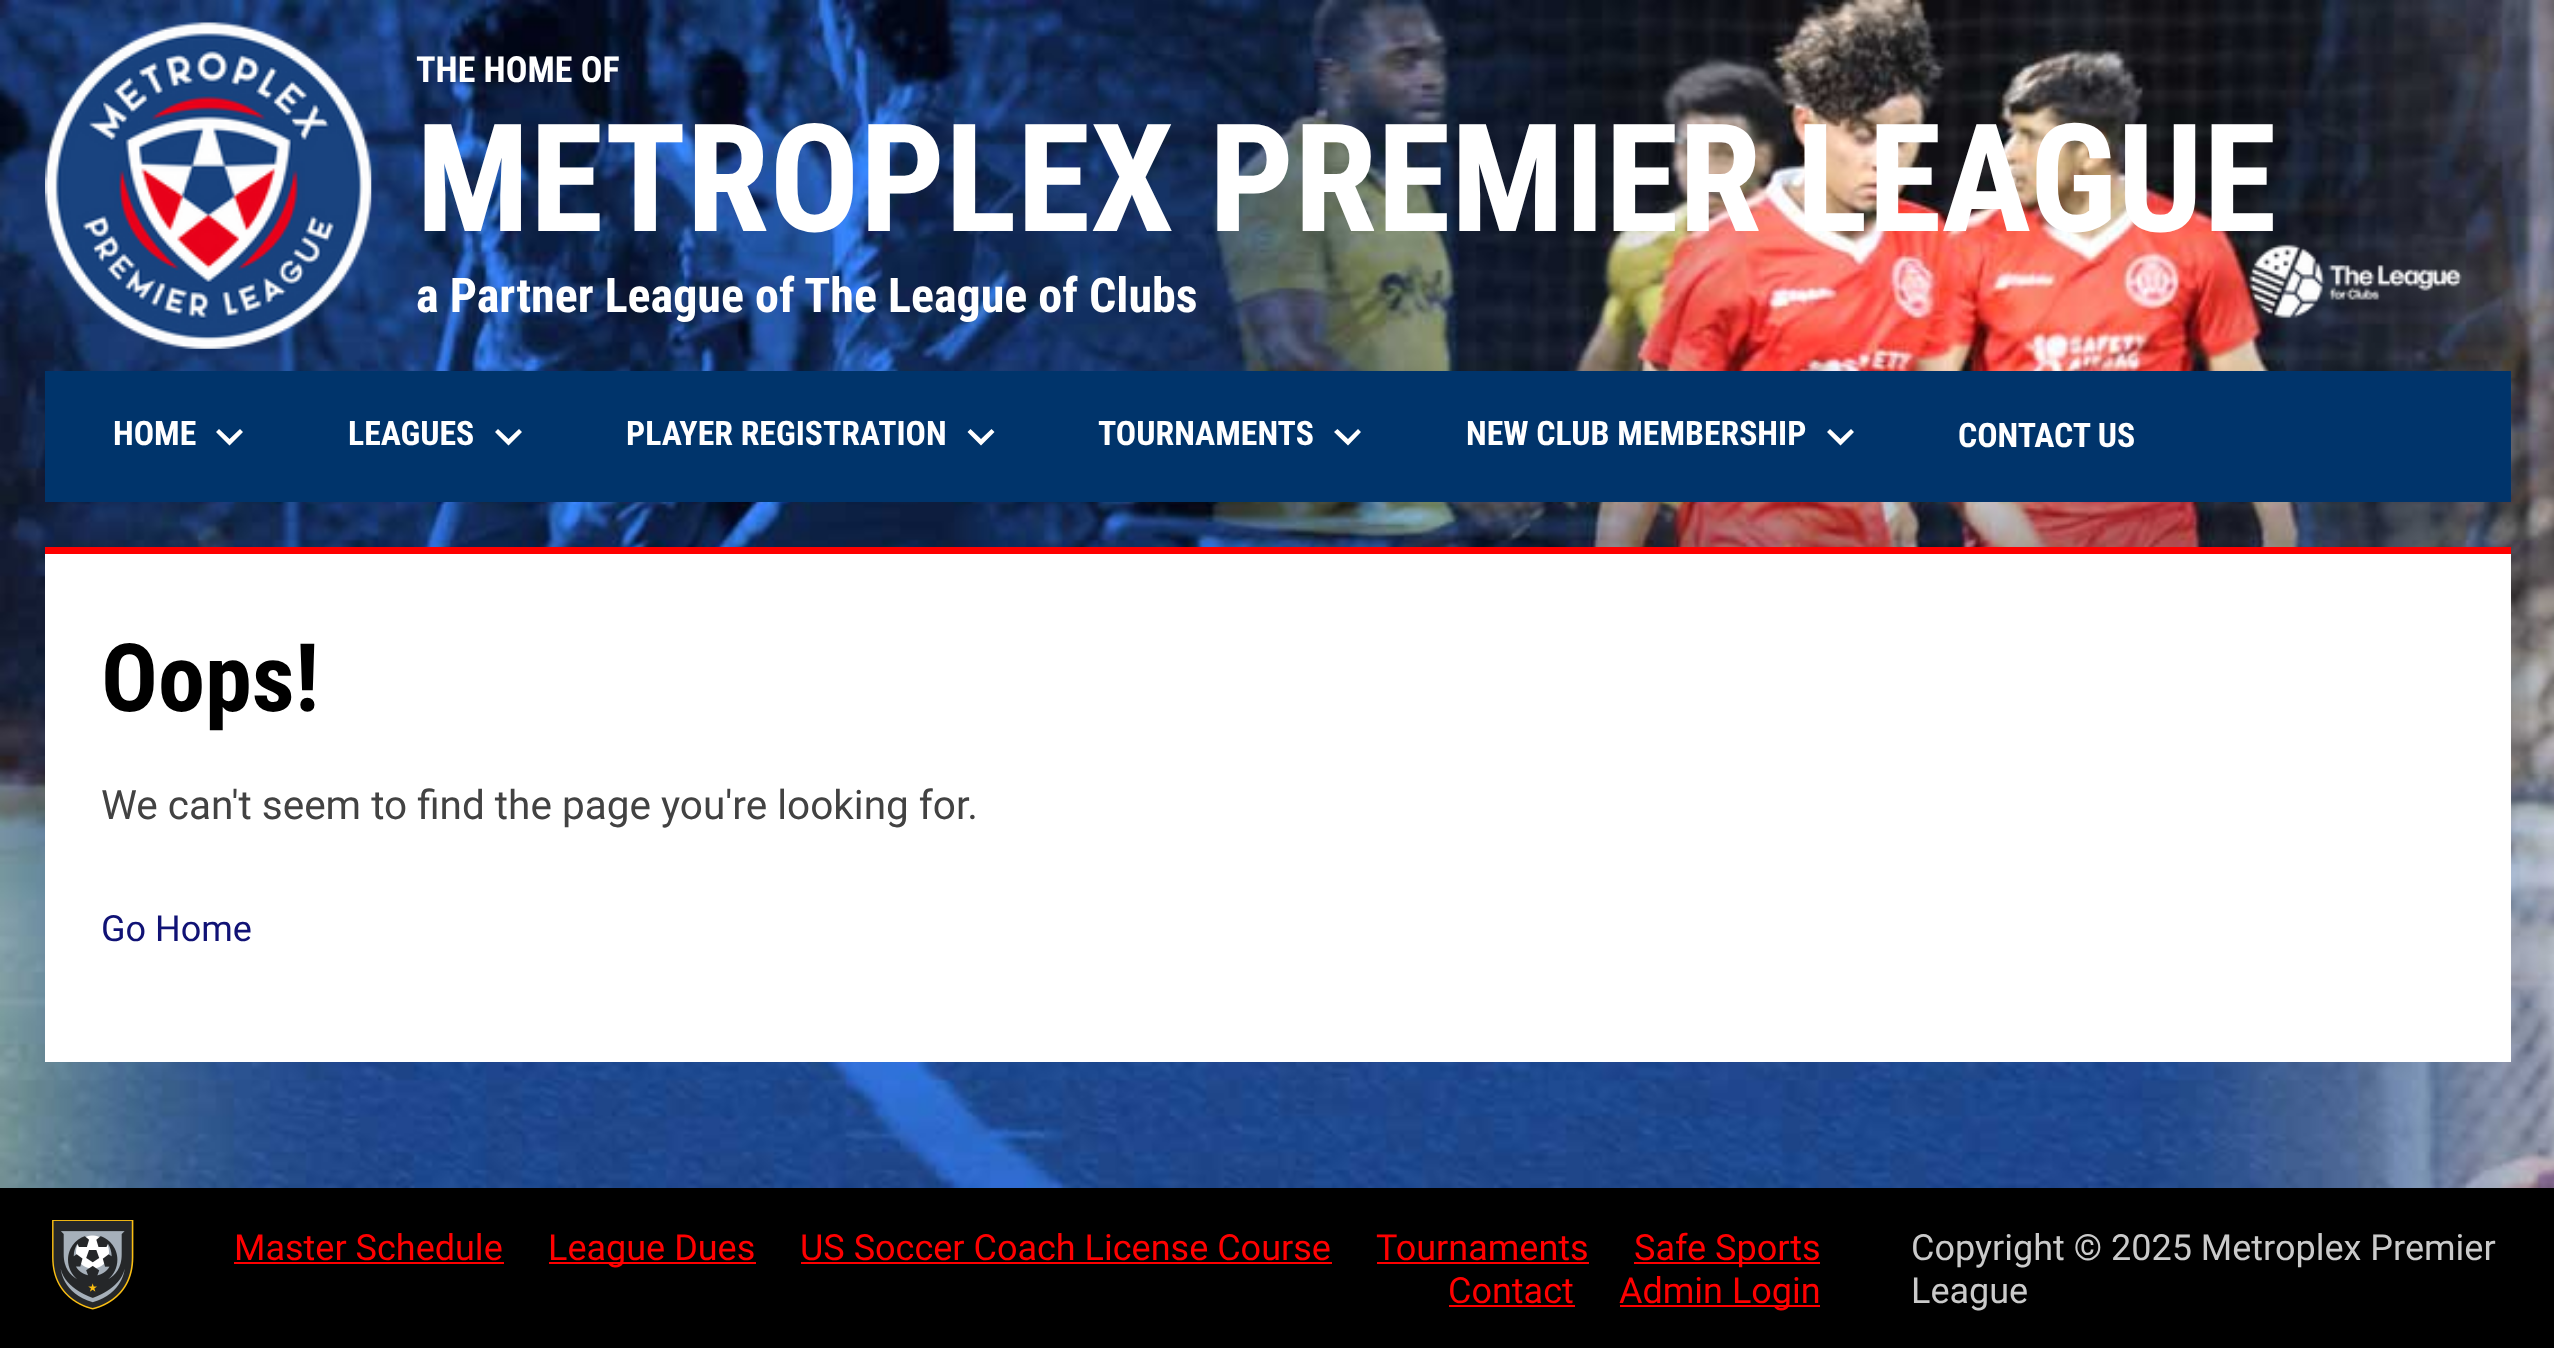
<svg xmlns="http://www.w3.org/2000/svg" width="2554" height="1348">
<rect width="100%" height="100%" fill="#fff"/>
<image x="0" y="0" width="2554" height="1188" href="media/1.png"/>
<image x="45" y="22" width="327" height="327" href="media/2.png"/>
<text x="416" y="82" style="font-family:Roboto Condensed;font-size:36px;font-weight:bold;fill:#fff">THE HOME OF</text>
<text x="416" y="231" style="font-family:Roboto Condensed;font-size:150px;font-weight:bold;fill:#fff">METROPLEX PREMIER LEAGUE</text>
<text x="416" y="312" style="font-family:Roboto Condensed;font-size:48px;font-weight:bold;fill:#fff">a Partner League of The League of Clubs</text>
<image x="2249" y="244" width="213" height="74" href="media/3.png"/>
<rect x="45" y="371" width="2466" height="131" fill="#00346b"/>
<text x="113" y="445" style="font-family:Roboto Condensed;font-size:33.75px;font-weight:bold;fill:#fff">HOME</text>
<path d="M219 429l10.5 10l10.5-10l3 3l-13.5 13.5l-13.5-13.5z" fill="#fff"/>
<text x="348" y="445" style="font-family:Roboto Condensed;font-size:33.75px;font-weight:bold;fill:#fff">LEAGUES</text>
<path d="M498 429l10.5 10l10.5-10l3 3l-13.5 13.5l-13.5-13.5z" fill="#fff"/>
<text x="626" y="445" style="font-family:Roboto Condensed;font-size:33.75px;font-weight:bold;fill:#fff">PLAYER REGISTRATION</text>
<path d="M970.5 429l10.5 10l10.5-10l3 3l-13.5 13.5l-13.5-13.5z" fill="#fff"/>
<text x="1098" y="445" style="font-family:Roboto Condensed;font-size:33.75px;font-weight:bold;fill:#fff">TOURNAMENTS</text>
<path d="M1337.5 429l10.5 10l10-10l3 3l-13 13.5l-14-13.5z" fill="#fff"/>
<text x="1466" y="445" style="font-family:Roboto Condensed;font-size:33.75px;font-weight:bold;fill:#fff">NEW CLUB MEMBERSHIP</text>
<path d="M1830 429l10.5 10l10.5-10l3 3l-13.5 13.5l-13.5-13.5z" fill="#fff"/>
<text x="1958" y="447" style="font-family:Roboto Condensed;font-size:33.75px;font-weight:bold;fill:#fff">CONTACT US</text>
<rect x="45" y="554" width="2466" height="508" fill="#fff"/>
<rect x="45" y="547" width="2466" height="7" fill="#f00"/>
<text x="101" y="711" style="font-family:Roboto Condensed;font-size:94.5px;font-weight:bold;fill:#000">Oops!</text>
<text x="101" y="819" style="font-family:Roboto;font-size:40.5px;fill:#424242">We can't seem to find the page you're looking for.</text>
<text x="101" y="941" style="font-family:Roboto;font-size:36px;fill:#101275">Go Home</text>
<rect y="1188" width="2554" height="160" fill="#000"/>
<image x="52" y="1220" width="82" height="90" href="media/4.png"/>
<text x="234" y="1260" style="font-family:Roboto;font-size:36px;fill:#f00">Master Schedule</text>
<rect x="234" y="1262" width="270" height="2" fill="#f00"/>
<rect x="549" y="1262" width="207" height="2" fill="#f00"/>
<text x="548" y="1260" style="font-family:Roboto;font-size:36px;fill:#f00">League Dues</text>
<text x="800" y="1260" style="font-family:Roboto;font-size:36px;fill:#f00">US Soccer Coach License Course</text>
<rect x="801" y="1262" width="531" height="2" fill="#f00"/>
<text x="1376" y="1260" style="font-family:Roboto;font-size:36px;fill:#f00">Tournaments</text>
<rect x="1377" y="1262" width="212" height="2" fill="#f00"/>
<rect x="1634" y="1262" width="186" height="2" fill="#f00"/>
<text x="1634" y="1260" style="font-family:Roboto;font-size:36px;fill:#f00">Safe Sports</text>
<text x="1448" y="1303" style="font-family:Roboto;font-size:36px;fill:#f00">Contact</text>
<rect x="1449" y="1305" width="126" height="2" fill="#f00"/>
<rect x="1620" y="1305" width="200" height="2" fill="#f00"/>
<text x="1619" y="1303" style="font-family:Roboto;font-size:36px;fill:#f00">Admin Login</text>
<text x="1911" y="1260" style="font-family:Roboto;font-size:36px;fill:#cacaca">Copyright © 2025 Metroplex Premier</text>
<text x="1911" y="1303" style="font-family:Roboto;font-size:36px;fill:#cacaca">League</text>
</svg>
